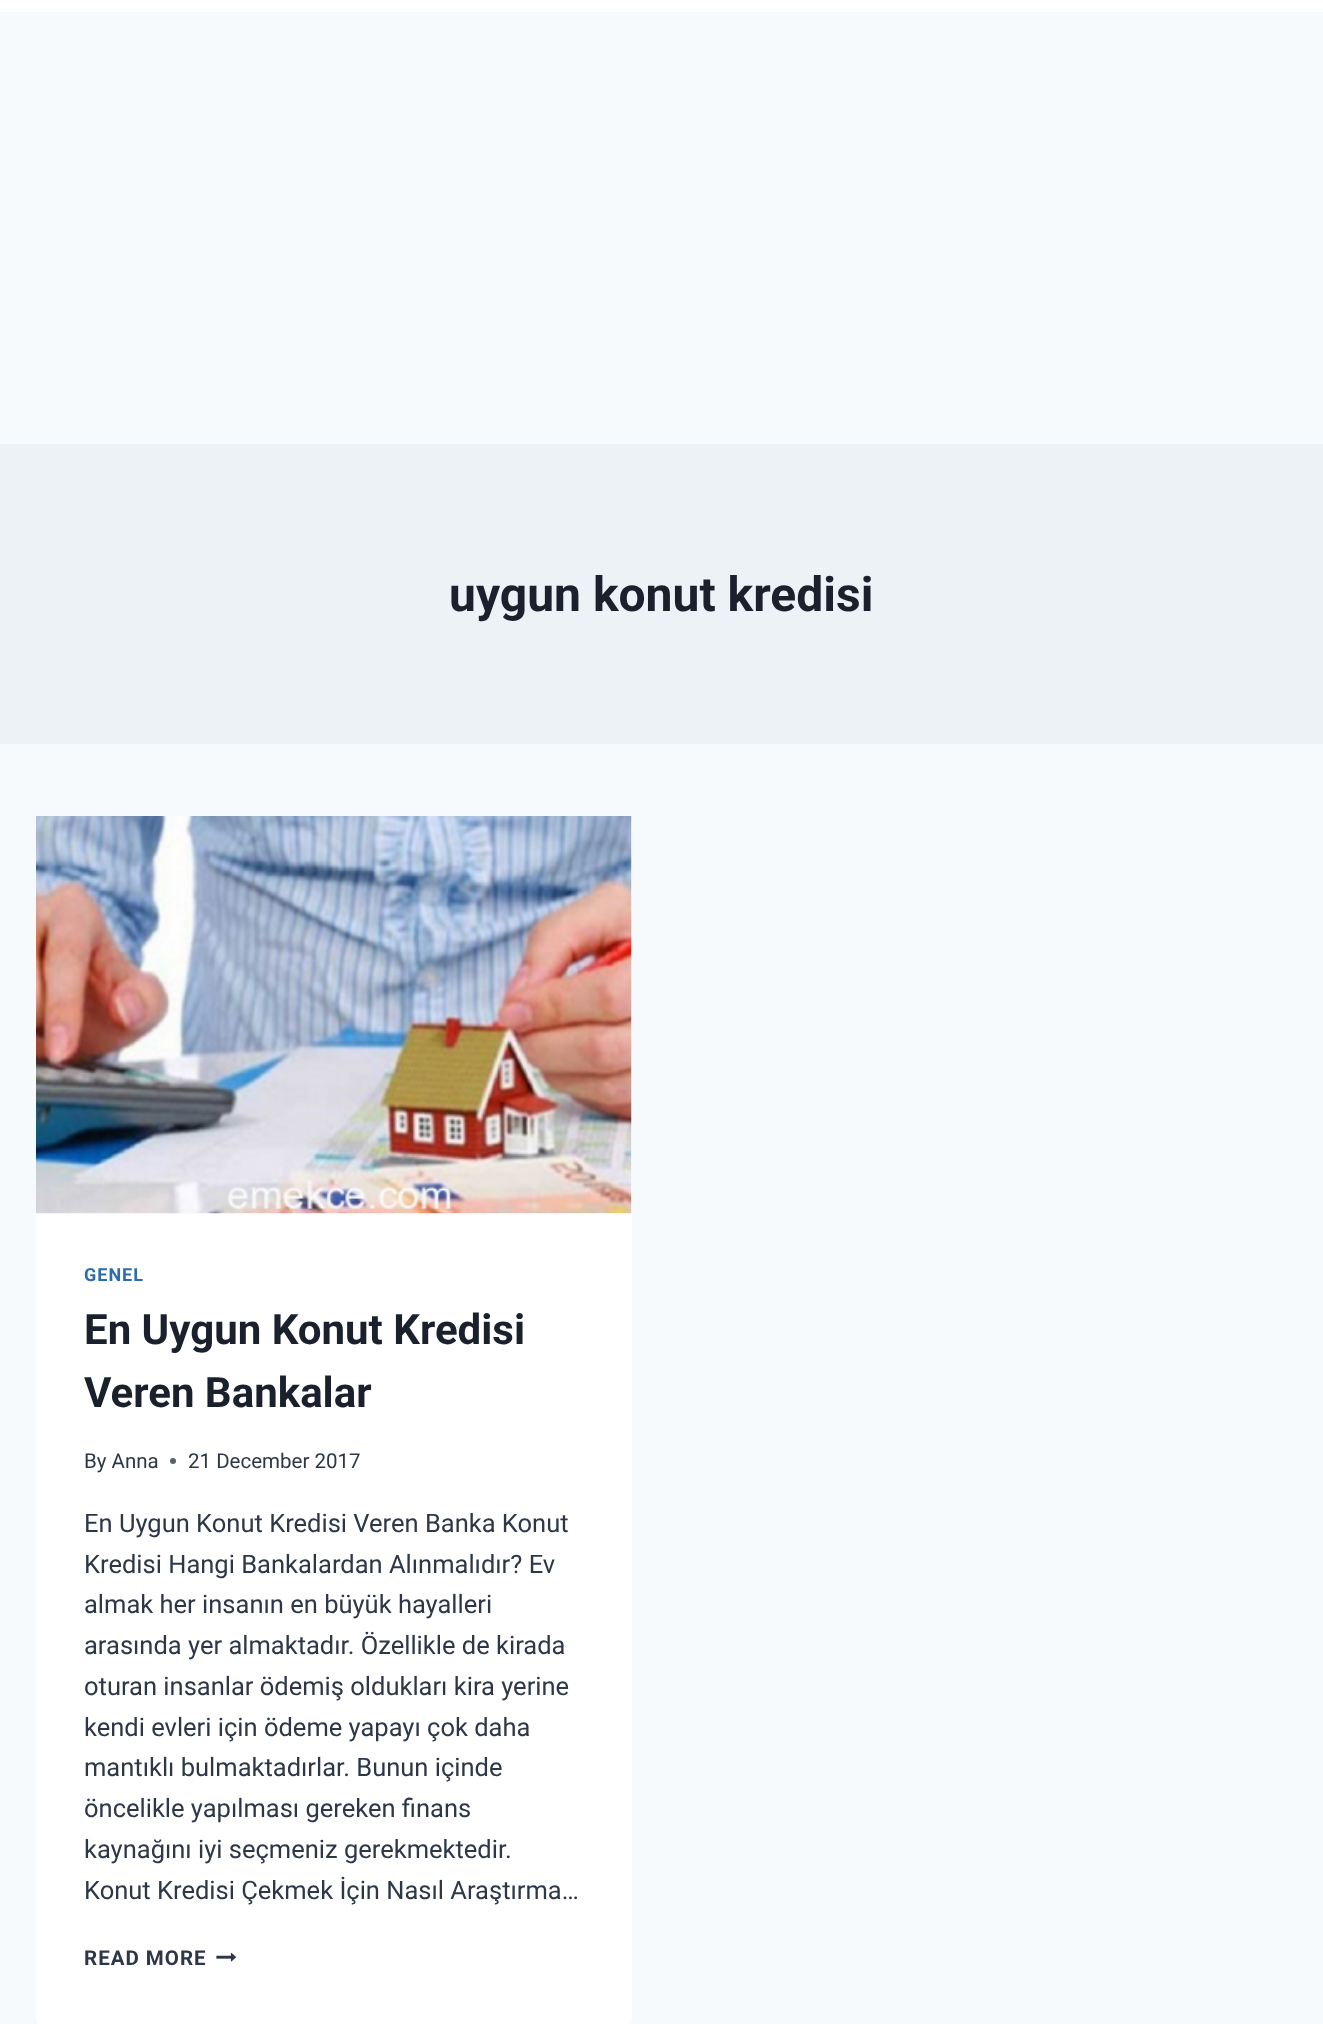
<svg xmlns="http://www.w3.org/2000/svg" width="1323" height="2024">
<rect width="100%" height="100%" fill="#f7fafc"/>
<rect width="1323" height="12" fill="#fff"/>
<rect y="444" width="1323" height="300" fill="#edf2f7"/>
<text x="449" y="611" style="font-family:Roboto;font-size:48px;font-weight:bold;fill:#1a202c">uygun konut kredisi</text>
<rect x="36" y="816" width="596" height="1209" rx="6" fill="#fff"/>
<image x="36" y="816" width="596" height="398" href="media/1.png"/>
<text x="84" y="1281" style="font-family:Roboto;font-size:18px;font-weight:bold;letter-spacing:1px;fill:#2b6cb0">GENEL</text>
<text x="84" y="1344" style="font-family:Roboto;font-size:42px;font-weight:bold;fill:#1a202c">En Uygun Konut Kredisi</text>
<text x="84" y="1407" style="font-family:Roboto;font-size:42px;font-weight:bold;fill:#1a202c">Veren Bankalar</text>
<text x="84" y="1468" style="font-family:Roboto;font-size:20.5px;fill:#2d3748">By Anna</text>
<circle cx="173" cy="1461" r="3" fill="#575f6d"/>
<text x="188" y="1468" style="font-family:Roboto;font-size:20.5px;fill:#2d3748">21 December 2017</text>
<text x="84" y="1532" style="font-family:Roboto;font-size:25.5px;fill:#2d3748">En Uygun Konut Kredisi Veren Banka Konut</text>
<text x="84" y="1573" style="font-family:Roboto;font-size:25.5px;fill:#2d3748">Kredisi Hangi Bankalardan Alınmalıdır? Ev</text>
<text x="84" y="1613" style="font-family:Roboto;font-size:25.5px;fill:#2d3748">almak her insanın en büyük hayalleri</text>
<text x="84" y="1654" style="font-family:Roboto;font-size:25.5px;fill:#2d3748">arasında yer almaktadır. Özellikle de kirada</text>
<text x="84" y="1695" style="font-family:Roboto;font-size:25.5px;fill:#2d3748">oturan insanlar ödemiş oldukları kira yerine</text>
<text x="84" y="1736" style="font-family:Roboto;font-size:25.5px;fill:#2d3748">kendi evleri için ödeme yapayı çok daha</text>
<text x="84" y="1776" style="font-family:Roboto;font-size:25.5px;fill:#2d3748">mantıklı bulmaktadırlar. Bunun içinde</text>
<text x="84" y="1817" style="font-family:Roboto;font-size:25.5px;fill:#2d3748">öncelikle yapılması gereken finans</text>
<text x="84" y="1858" style="font-family:Roboto;font-size:25.5px;fill:#2d3748">kaynağını iyi seçmeniz gerekmektedir.</text>
<text x="84" y="1899" style="font-family:Roboto;font-size:25.5px;fill:#2d3748">Konut Kredisi Çekmek İçin Nasıl Araştırma…</text>
<text x="84" y="1965" style="font-family:Roboto;font-size:20.5px;font-weight:bold;letter-spacing:1px;fill:#2d3748">READ MORE</text>
<image x="216" y="1952" width="20" height="10" href="media/2.png"/>
</svg>
